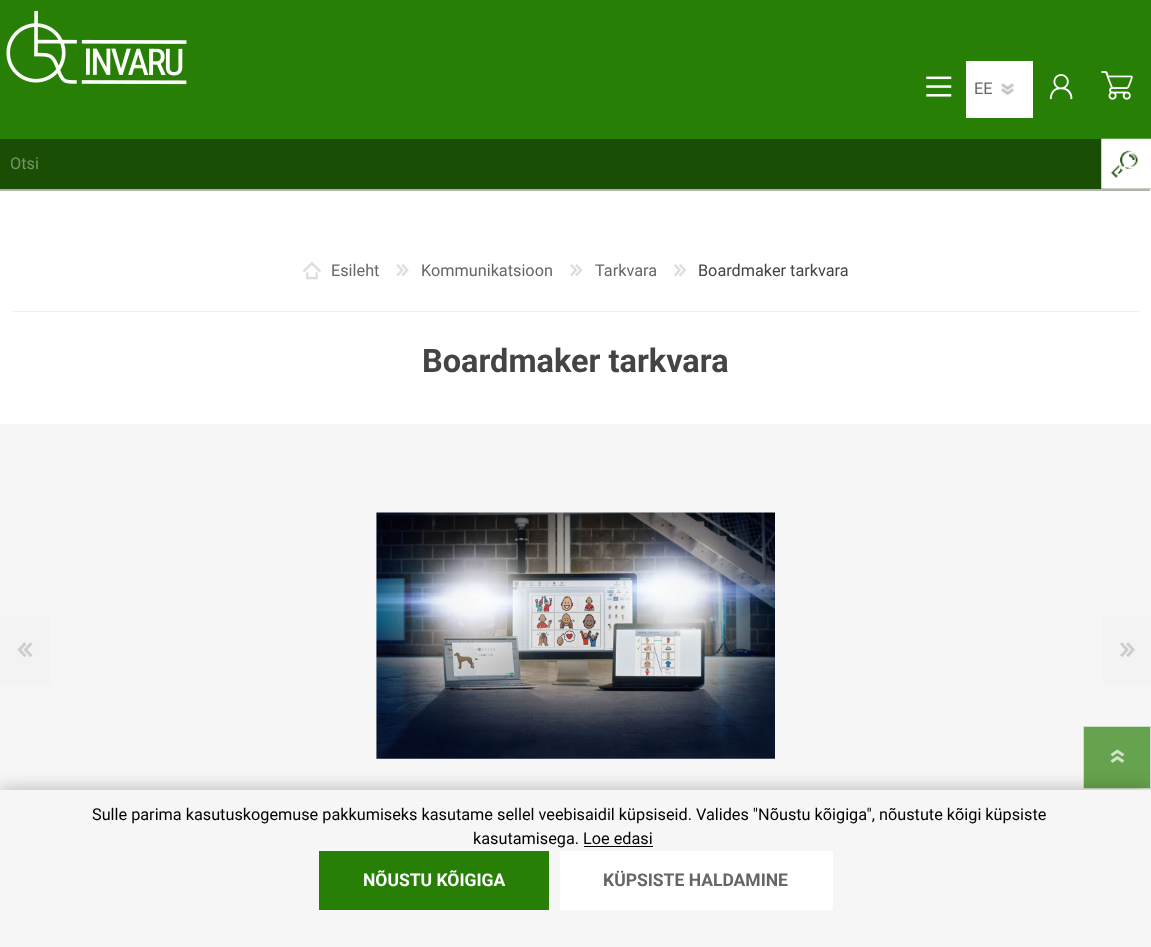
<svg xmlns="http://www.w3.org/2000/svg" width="1151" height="947">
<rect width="100%" height="100%" fill="#fff"/>
<rect width="1151" height="139" fill="#287f06"/>
<image x="926" y="76" width="26" height="21" href="media/1.png"/>
<rect x="966" y="61" width="67" height="57" fill="#fff"/>
<image x="1001" y="83" width="13" height="12" href="media/2.png"/>
<text x="974" y="94" style="font-family:Roboto;font-size:16.25px;fill:#666">EE</text>
<image x="1049" y="74" width="24" height="26" href="media/3.png"/>
<image x="1101" y="71" width="32" height="29" href="media/4.png"/>
<image x="6" y="10" width="181" height="75" href="media/5.png"/>
<rect x="-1" y="141" width="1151" height="50" fill="#0000004d" filter="blur(0.5px)"/>
<rect y="139" width="1151" height="50" fill="#194e04"/>
<text x="10" y="169" style="font-family:Roboto;font-size:16.25px;fill:#759568">Otsi</text>
<image x="1113" y="151" width="25" height="26" href="media/6.png"/>
<image x="1101" y="138" width="50" height="51" href="media/7.png"/>
<rect x="13" y="311" width="1126" height="1" fill="#eee"/>
<image x="302" y="262" width="19" height="18" href="media/8.png"/>
<text x="331" y="276" style="font-family:Roboto;font-size:16.25px;fill:#666">Esileht</text>
<image x="396" y="264" width="13" height="12" href="media/9.png"/>
<text x="421" y="276" style="font-family:Roboto;font-size:16.25px;fill:#666">Kommunikatsioon</text>
<image x="570" y="264" width="13" height="13" href="media/10.png"/>
<text x="595" y="276" style="font-family:Roboto;font-size:16.25px;fill:#666">Tarkvara</text>
<image x="674" y="264" width="12" height="13" href="media/11.png"/>
<text x="698" y="276" style="font-family:Roboto;font-size:16.25px;fill:#444">Boardmaker tarkvara</text>
<text x="422" y="372" style="font-family:Roboto;font-size:32.5px;font-weight:bold;fill:#444">Boardmaker tarkvara</text>
<rect y="424" width="1151" height="366" fill="#f6f6f6"/>
<rect y="616" width="50" height="69" fill="#f3f3f3"/>
<image x="17" y="642" width="16" height="15" href="media/12.png"/>
<image x="376" y="512" width="399" height="247" href="media/13.png"/>
<rect x="1103" y="616" width="48" height="69" fill="#f3f3f3"/>
<image x="1120" y="642" width="15" height="15" href="media/14.png"/>
<rect x="1083.5" y="726.5" width="67" height="62" fill="#66a34e" stroke="#cfe1c8"/>
<image x="1110" y="749" width="15" height="14" href="media/15.png"/>
<rect y="791" width="1151" height="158" fill="#0000004d" filter="blur(9.5px)"/>
<rect y="790" width="1151" height="157" fill="#f6f6f6"/>
<text x="92" y="820" style="font-family:Roboto;font-size:16.25px;fill:#000">Sulle parima kasutuskogemuse pakkumiseks kasutame sellel veebisaidil küpsiseid. Valides "Nõustu kõigiga", nõustute kõigi küpsiste</text>
<text x="473" y="844" style="font-family:Roboto;font-size:16.25px;fill:#000">kasutamisega. Loe edasi</text>
<rect x="584" y="846" width="69" height="1" fill="#000"/>
<rect x="319" y="851" width="230" height="59" fill="#287f06"/>
<text x="363" y="886" style="font-family:Roboto;font-size:17.5px;font-weight:bold;fill:#fff">NÕUSTU KÕIGIGA</text>
<rect x="560" y="851" width="273" height="59" fill="#fff"/>
<text x="603" y="886" style="font-family:Roboto;font-size:17.5px;font-weight:bold;fill:#666">KÜPSISTE HALDAMINE</text>
</svg>
